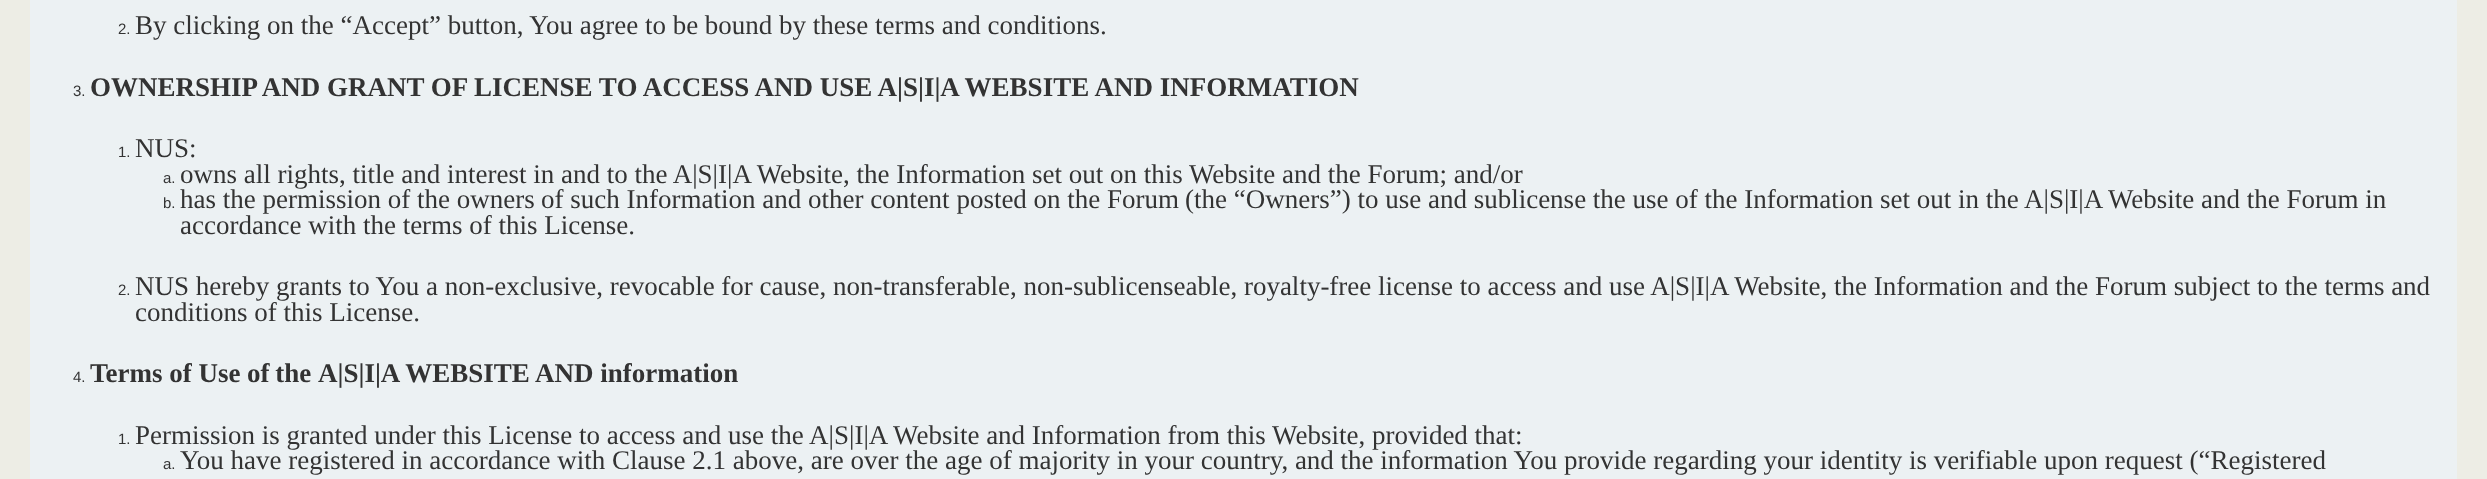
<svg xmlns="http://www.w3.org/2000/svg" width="2487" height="479">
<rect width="100%" height="100%" fill="#edede5"/>
<rect x="30" width="2427" height="479" fill="#ecf1f3"/>
<text x="118" y="34" style="font-family:Liberation Sans;font-size:15px;fill:#333">2.</text>
<text x="135" y="34" style="font-family:Liberation Serif;font-size:27px;fill:#333">By clicking on the “Accept” button, You agree to be bound by these terms and conditions.</text>
<text x="73" y="96" style="font-family:Liberation Sans;font-size:15px;fill:#333">3.</text>
<text x="90" y="96" style="font-family:Liberation Serif;font-size:27px;font-weight:bold;fill:#333">OWNERSHIP AND GRANT OF LICENSE TO ACCESS AND USE A|S|I|A WEBSITE AND INFORMATION</text>
<text x="118" y="157" style="font-family:Liberation Sans;font-size:15px;fill:#333">1.</text>
<text x="135" y="157" style="font-family:Liberation Serif;font-size:27px;fill:#333">NUS:</text>
<text x="163" y="183" style="font-family:Liberation Sans;font-size:15px;fill:#333">a.</text>
<text x="180" y="183" style="font-family:Liberation Serif;font-size:27px;fill:#333">owns all rights, title and interest in and to the A|S|I|A Website, the Information set out on this Website and the Forum; and/or</text>
<text x="163" y="208" style="font-family:Liberation Sans;font-size:15px;fill:#333">b.</text>
<text x="180" y="208" style="font-family:Liberation Serif;font-size:27px;fill:#333">has the permission of the owners</text>
<text x="541" y="208" style="font-family:Liberation Serif;font-size:27px;fill:#333">of such Information and other content posted on the Forum</text>
<text x="1185" y="208" style="font-family:Liberation Serif;font-size:27px;fill:#333">(the “Owners”) to use and sublicense the use of the Information set out in the A|S|I|A Website and the Forum in</text>
<text x="180" y="234" style="font-family:Liberation Serif;font-size:27px;fill:#333">accordance with the terms of this License.</text>
<text x="118" y="295" style="font-family:Liberation Sans;font-size:15px;fill:#333">2.</text>
<text x="135" y="295" style="font-family:Liberation Serif;font-size:27px;fill:#333">NUS hereby grants to You a non-exclusive, revocable for cause, non-transferable, non-sublicenseable, royalty-free license to access and use A|S|I|A Website, the Information and the Forum subject to the terms and</text>
<text x="135" y="321" style="font-family:Liberation Serif;font-size:27px;fill:#333">conditions of this License.</text>
<text x="73" y="382" style="font-family:Liberation Sans;font-size:15px;fill:#333">4.</text>
<text x="90" y="382" style="font-family:Liberation Serif;font-size:27px;font-weight:bold;fill:#333">Terms of Use</text>
<text x="247" y="382" word-spacing="-1" style="font-family:Liberation Serif;font-size:27px;font-weight:bold;fill:#333">of the</text>
<text x="318" y="382" style="font-family:Liberation Serif;font-size:27px;font-weight:bold;fill:#333">A|S|I|A WEBSITE AND information</text>
<text x="118" y="444" style="font-family:Liberation Sans;font-size:15px;fill:#333">1.</text>
<text x="135" y="444" style="font-family:Liberation Serif;font-size:27px;fill:#333">Permission is granted under this License to access and use the A|S|I|A Website and Information from this Website, provided that:</text>
<text x="163" y="469" style="font-family:Liberation Sans;font-size:15px;fill:#333">a.</text>
<text x="180" y="469" style="font-family:Liberation Serif;font-size:27px;fill:#333">You have registered in accordance with Clause 2.1 above, are over the age of majority in your country, and the information You provide regarding your identity is verifiable upon request (“Registered</text>
</svg>
